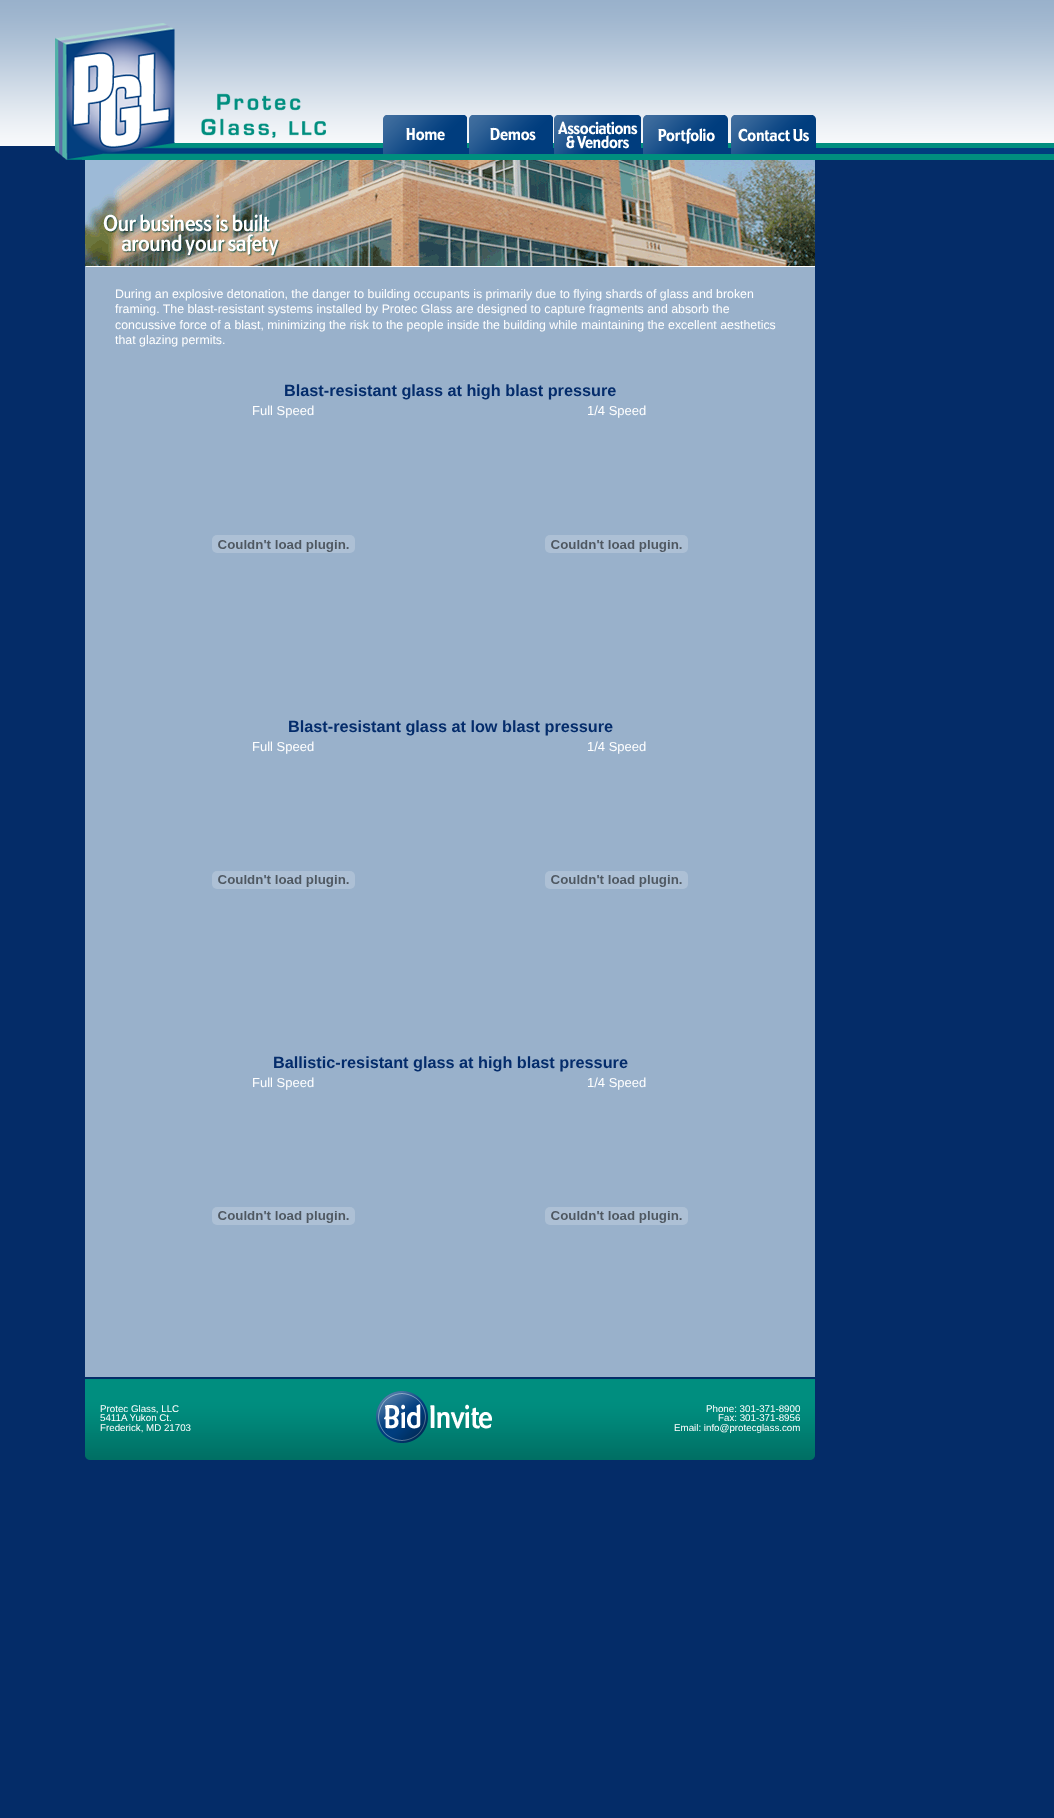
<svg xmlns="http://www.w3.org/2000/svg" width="1054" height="1818">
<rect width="100%" height="100%" fill="#042c68"/>
<image x="0" y="0" width="1054" height="160" href="media/1.png"/>
<image x="383" y="115" width="84" height="39" href="media/2.png"/>
<image x="469" y="115" width="84" height="39" href="media/3.png"/>
<image x="554" y="115" width="87" height="39" href="media/4.png"/>
<image x="643" y="115" width="85" height="39" href="media/5.png"/>
<image x="731" y="115" width="85" height="39" href="media/6.png"/>
<rect x="85" y="267" width="730" height="1110" fill="#99b1cb"/>
<image x="85" y="160" width="730" height="107" href="media/7.png"/>
<text x="115" y="298" style="font-family:Liberation Sans;font-size:12.35px;fill:#fff">During an explosive detonation, the danger to building occupants is primarily due to flying shards of glass and broken</text>
<text x="115" y="313" style="font-family:Liberation Sans;font-size:12.35px;fill:#fff">framing. The blast-resistant systems installed by Protec Glass are designed to capture fragments and absorb the</text>
<text x="115" y="329" style="font-family:Liberation Sans;font-size:12.35px;fill:#fff">concussive force of a blast, minimizing the risk to the people inside the building while maintaining the excellent aesthetics</text>
<text x="115" y="344" style="font-family:Liberation Sans;font-size:12.35px;fill:#fff">that glazing permits.</text>
<text x="284" y="396" style="font-family:Liberation Sans;font-size:16.25px;font-weight:bold;fill:#042c6b">Blast-resistant glass at high blast pressure</text>
<text x="252" y="415" style="font-family:Liberation Sans;font-size:13px;fill:#fff">Full Speed</text>
<text x="587" y="415" style="font-family:Liberation Sans;font-size:13px;fill:#fff">1/4 Speed</text>
<image x="212" y="535" width="143" height="18" href="media/8.png"/>
<image x="545" y="535" width="143" height="18" href="media/9.png"/>
<text x="288" y="732" style="font-family:Liberation Sans;font-size:16.25px;font-weight:bold;fill:#042c6b">Blast-resistant glass at low blast pressure</text>
<text x="252" y="751" style="font-family:Liberation Sans;font-size:13px;fill:#fff">Full Speed</text>
<text x="587" y="751" style="font-family:Liberation Sans;font-size:13px;fill:#fff">1/4 Speed</text>
<image x="212" y="871" width="143" height="18" href="media/10.png"/>
<image x="545" y="871" width="143" height="18" href="media/11.png"/>
<text x="273" y="1068" style="font-family:Liberation Sans;font-size:16.25px;font-weight:bold;fill:#042c6b">Ballistic-resistant glass at high blast pressure</text>
<text x="252" y="1087" style="font-family:Liberation Sans;font-size:13px;fill:#fff">Full Speed</text>
<text x="587" y="1087" style="font-family:Liberation Sans;font-size:13px;fill:#fff">1/4 Speed</text>
<image x="212" y="1207" width="143" height="18" href="media/10.png"/>
<image x="545" y="1207" width="143" height="18" href="media/11.png"/>
<image x="85" y="1379" width="730" height="81" href="media/12.png"/>
<text x="100" y="1412" style="font-family:Liberation Sans;font-size:9.75px;fill:#fff">Protec Glass, LLC</text>
<text x="100" y="1421" style="font-family:Liberation Sans;font-size:9.75px;fill:#fff">5411A Yukon Ct.</text>
<text x="100" y="1431" style="font-family:Liberation Sans;font-size:9.75px;fill:#fff">Frederick, MD 21703</text>
<image x="376" y="1391" width="116" height="52" href="media/13.png"/>
<text x="706" y="1412" style="font-family:Liberation Sans;font-size:9.75px;fill:#fff">Phone: 301-371-8900</text>
<text x="718" y="1421" style="font-family:Liberation Sans;font-size:9.75px;fill:#fff">Fax: 301-371-8956</text>
<text x="674" y="1431" style="font-family:Liberation Sans;font-size:9.75px;fill:#fff">Email: info@protecglass.com</text>
</svg>
